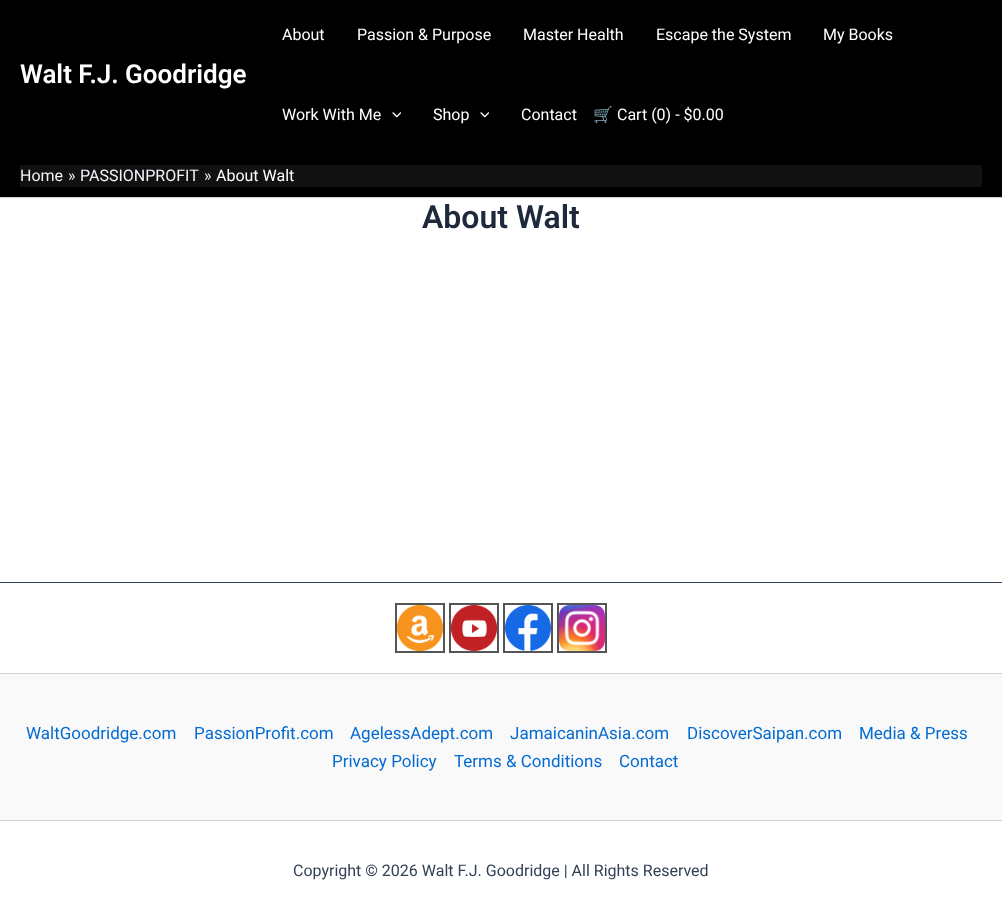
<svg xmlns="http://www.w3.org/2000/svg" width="1002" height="921">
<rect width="100%" height="100%" fill="#fff"/>
<rect width="1002" height="197" fill="#000"/>
<text x="20" y="83" style="font-family:Roboto;font-size:26px;font-weight:600;fill:#fff">Walt F.J. Goodridge</text>
<text x="282" y="40" style="font-family:Roboto;font-size:16px;fill:#fff">About</text>
<text x="357" y="40" style="font-family:Roboto;font-size:16px;fill:#fff">Passion &amp; Purpose</text>
<text x="523" y="40" style="font-family:Roboto;font-size:16px;fill:#fff">Master Health</text>
<text x="656" y="40" style="font-family:Roboto;font-size:16px;fill:#fff">Escape the System</text>
<text x="823" y="40" style="font-family:Roboto;font-size:16px;fill:#fff">My Books</text>
<text x="282" y="120" style="font-family:Roboto;font-size:16px;fill:#fff">Work With Me</text>
<image x="392" y="112" width="9" height="6" href="media/1.png"/>
<text x="433" y="120" style="font-family:Roboto;font-size:16px;fill:#fff">Shop</text>
<image x="480" y="112" width="9" height="6" href="media/1.png"/>
<text x="521" y="120" style="font-family:Roboto;font-size:16px;fill:#fff">Contact</text>
<text x="593" y="120" style="font-family:Noto Color Emoji;font-size:16px;fill:#fff">🛒</text>
<text x="617" y="120" style="font-family:Roboto;font-size:16px;fill:#fff">Cart (0) - $0.00</text>
<rect y="197" width="1002" height="1" fill="#d1d5db"/>
<rect x="20" y="165" width="962" height="22" fill="#111"/>
<text x="20" y="181" style="font-family:Roboto;font-size:16px;fill:#f0f5fa">Home</text>
<text x="68" y="181" style="font-family:Roboto;font-size:16px;fill:#f0f5fa">»</text>
<text x="80" y="181" style="font-family:Roboto;font-size:16px;fill:#f0f5fa">PASSIONPROFIT</text>
<text x="204" y="181" style="font-family:Roboto;font-size:16px;fill:#f0f5fa">»</text>
<text x="216" y="181" style="font-family:Roboto;font-size:16px;fill:#fff">About Walt</text>
<text x="422" y="228" style="font-family:Roboto;font-size:32px;font-weight:600;fill:#1e293b">About Walt</text>
<rect y="582" width="1002" height="1" fill="#334155"/>
<rect x="396" y="604" width="48" height="48" fill="none" stroke="#555" stroke-width="2"/>
<image x="397" y="605" width="46" height="46" href="media/2.png"/>
<rect x="450" y="604" width="48" height="48" fill="none" stroke="#555" stroke-width="2"/>
<image x="451" y="605" width="46" height="46" href="media/3.png"/>
<rect x="504" y="604" width="48" height="48" fill="none" stroke="#555" stroke-width="2"/>
<image x="505" y="605" width="46" height="46" href="media/4.png"/>
<rect x="558" y="604" width="48" height="48" fill="none" stroke="#555" stroke-width="2"/>
<image x="559" y="605" width="46" height="46" href="media/5.png"/>
<rect y="674" width="1002" height="146" fill="#f9f9f9"/>
<rect y="673" width="1002" height="1" fill="#d1d5db"/>
<text x="26" y="739" style="font-family:Roboto;font-size:17px;fill:#046bd2">WaltGoodridge.com</text>
<text x="194" y="739" style="font-family:Roboto;font-size:17px;fill:#046bd2">PassionProfit.com</text>
<text x="350" y="739" style="font-family:Roboto;font-size:17px;fill:#046bd2">AgelessAdept.com</text>
<text x="510" y="739" style="font-family:Roboto;font-size:17px;fill:#046bd2">JamaicaninAsia.com</text>
<text x="687" y="739" style="font-family:Roboto;font-size:17px;fill:#046bd2">DiscoverSaipan.com</text>
<text x="859" y="739" style="font-family:Roboto;font-size:17px;fill:#046bd2">Media &amp; Press</text>
<text x="332" y="767" style="font-family:Roboto;font-size:17px;fill:#046bd2">Privacy Policy</text>
<text x="454" y="767" style="font-family:Roboto;font-size:17px;fill:#046bd2">Terms &amp; Conditions</text>
<text x="619" y="767" style="font-family:Roboto;font-size:17px;fill:#046bd2">Contact</text>
<rect y="820" width="1002" height="1" fill="#d1d5db"/>
<text x="293" y="876" style="font-family:Roboto;font-size:16px;fill:#334155">Copyright © 2026 Walt F.J. Goodridge | All Rights Reserved</text>
</svg>
